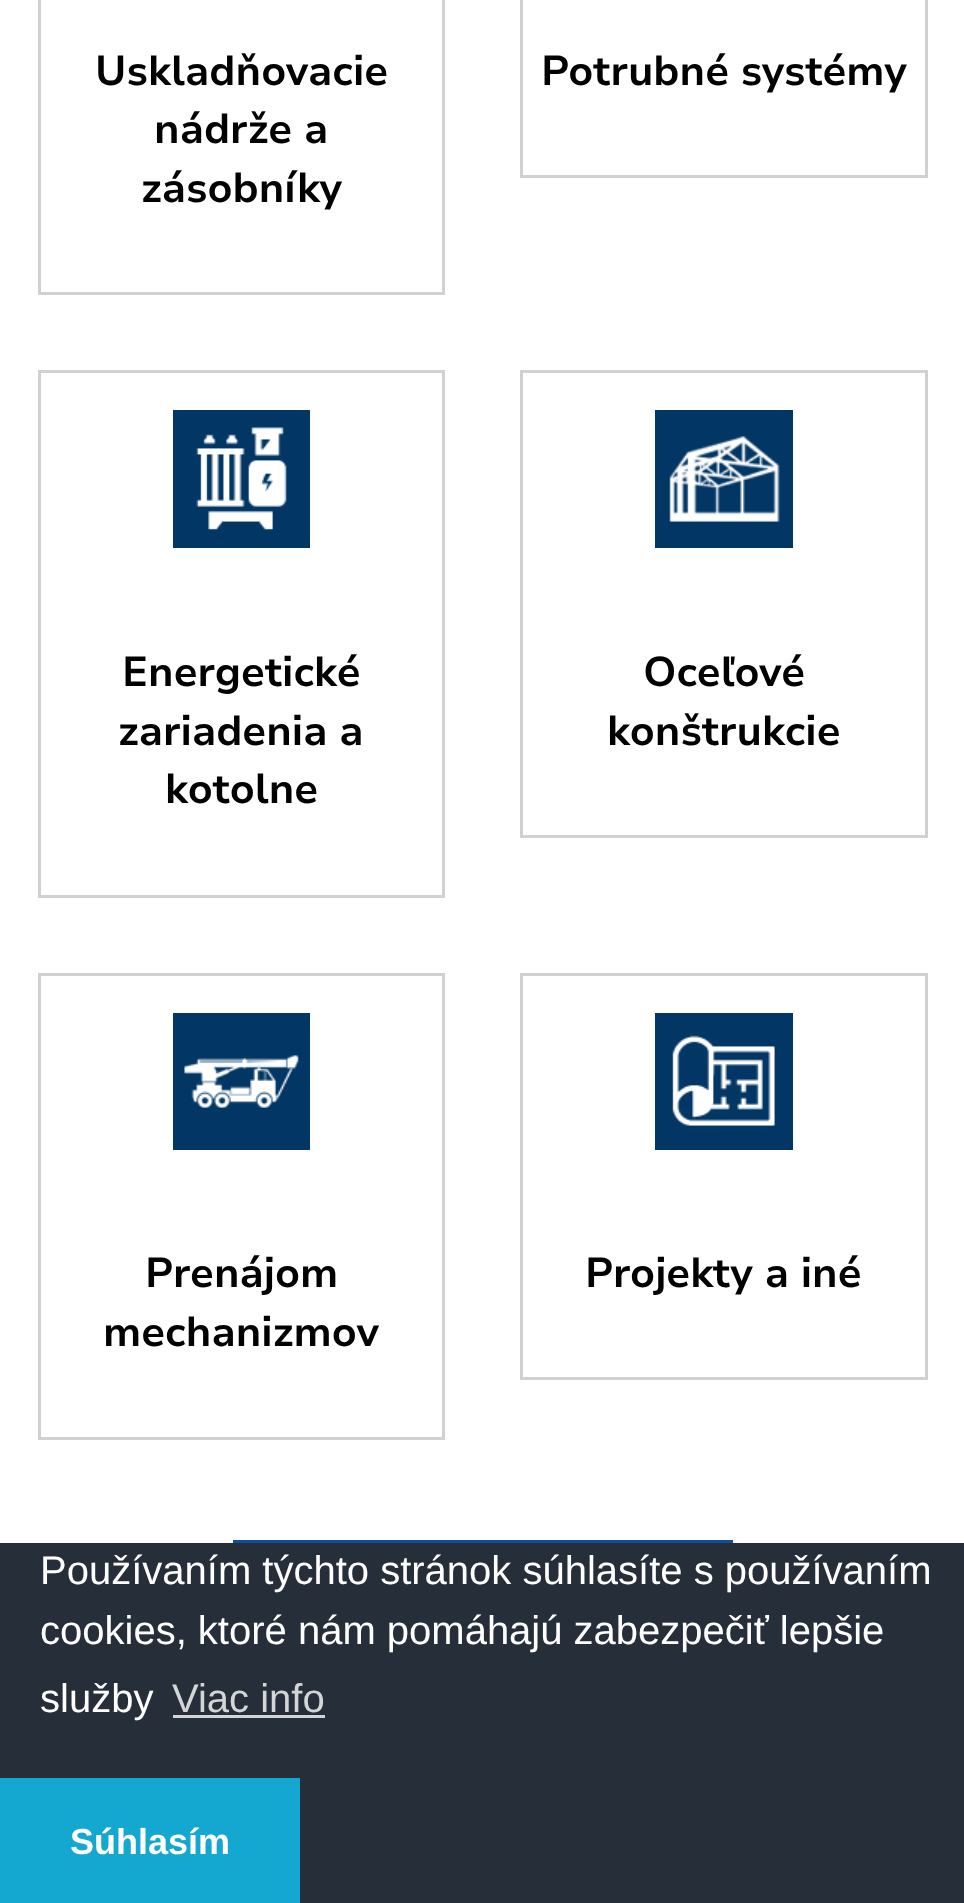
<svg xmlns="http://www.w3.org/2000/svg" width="964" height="1903">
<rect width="100%" height="100%" fill="#fff"/>
<rect x="39.5" y="-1.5" width="404" height="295" fill="none" stroke="#d1d1d1" stroke-width="3"/>
<text x="95" y="85" style="font-family:Nunito Sans;font-size:41.75px;font-weight:bold;fill:#000">Uskladňovacie</text>
<text x="154" y="143" style="font-family:Nunito Sans;font-size:41.75px;font-weight:bold;fill:#000">nádrže a</text>
<text x="141" y="202" style="font-family:Nunito Sans;font-size:41.75px;font-weight:bold;fill:#000">zásobníky</text>
<rect x="521.5" y="-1.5" width="405" height="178" fill="none" stroke="#d1d1d1" stroke-width="3"/>
<text x="541" y="85" style="font-family:Nunito Sans;font-size:41.75px;font-weight:bold;fill:#000">Potrubné systémy</text>
<rect x="39.5" y="371.5" width="404" height="525" fill="none" stroke="#d1d1d1" stroke-width="3"/>
<rect x="173" y="410" width="137" height="138" fill="#023664"/>
<image x="196" y="427" width="91" height="103" href="media/1.png"/>
<text x="122" y="686" style="font-family:Nunito Sans;font-size:41.75px;font-weight:bold;fill:#000">Energetické</text>
<text x="118" y="745" style="font-family:Nunito Sans;font-size:41.75px;font-weight:bold;fill:#000">zariadenia a</text>
<text x="165" y="803" style="font-family:Nunito Sans;font-size:41.75px;font-weight:bold;fill:#000">kotolne</text>
<rect x="521.5" y="371.5" width="405" height="465" fill="none" stroke="#d1d1d1" stroke-width="3"/>
<rect x="655" y="410" width="138" height="138" fill="#023664"/>
<image x="669" y="436" width="111" height="86" href="media/2.png"/>
<text x="643" y="686" style="font-family:Nunito Sans;font-size:41.75px;font-weight:bold;fill:#000">Oceľové</text>
<text x="607" y="745" style="font-family:Nunito Sans;font-size:41.75px;font-weight:bold;fill:#000">konštrukcie</text>
<rect x="39.5" y="974.5" width="404" height="464" fill="none" stroke="#d1d1d1" stroke-width="3"/>
<rect x="173" y="1013" width="137" height="137" fill="#023664"/>
<image x="184" y="1055" width="115" height="53" href="media/3.png"/>
<text x="145" y="1287" style="font-family:Nunito Sans;font-size:41.75px;font-weight:bold;fill:#000">Prenájom</text>
<text x="103" y="1346" style="font-family:Nunito Sans;font-size:41.75px;font-weight:bold;fill:#000">mechanizmov</text>
<rect x="521.5" y="974.5" width="405" height="404" fill="none" stroke="#d1d1d1" stroke-width="3"/>
<rect x="655" y="1013" width="138" height="137" fill="#023664"/>
<image x="672" y="1035" width="103" height="91" href="media/4.png"/>
<text x="585" y="1287" style="font-family:Nunito Sans;font-size:41.75px;font-weight:bold;fill:#000">Projekty a iné</text>
<rect x="233" y="1540" width="500" height="3" fill="#104f9f"/>
<rect y="1543" width="964" height="360" fill="#252e39"/>
<text x="40" y="1584" style="font-family:Liberation Sans;font-size:40px;fill:#fff">Používaním týchto stránok súhlasíte s používaním</text>
<text x="40" y="1644" style="font-family:Liberation Sans;font-size:40px;fill:#fff">cookies, ktoré nám pomáhajú zabezpečiť lepšie</text>
<text x="40" y="1712" style="font-family:Liberation Sans;font-size:40px;fill:#fff">služby</text>
<text x="172" y="1712" style="font-family:Liberation Sans;font-size:40px;fill:#d3d5d7">Viac info</text>
<rect x="173" y="1715" width="152" height="3" fill="#d3d5d7"/>
<rect y="1778" width="300" height="125" fill="#14a7d0"/>
<text x="70" y="1854" style="font-family:Liberation Sans;font-size:36px;font-weight:bold;fill:#fff">Súhlasím</text>
</svg>
